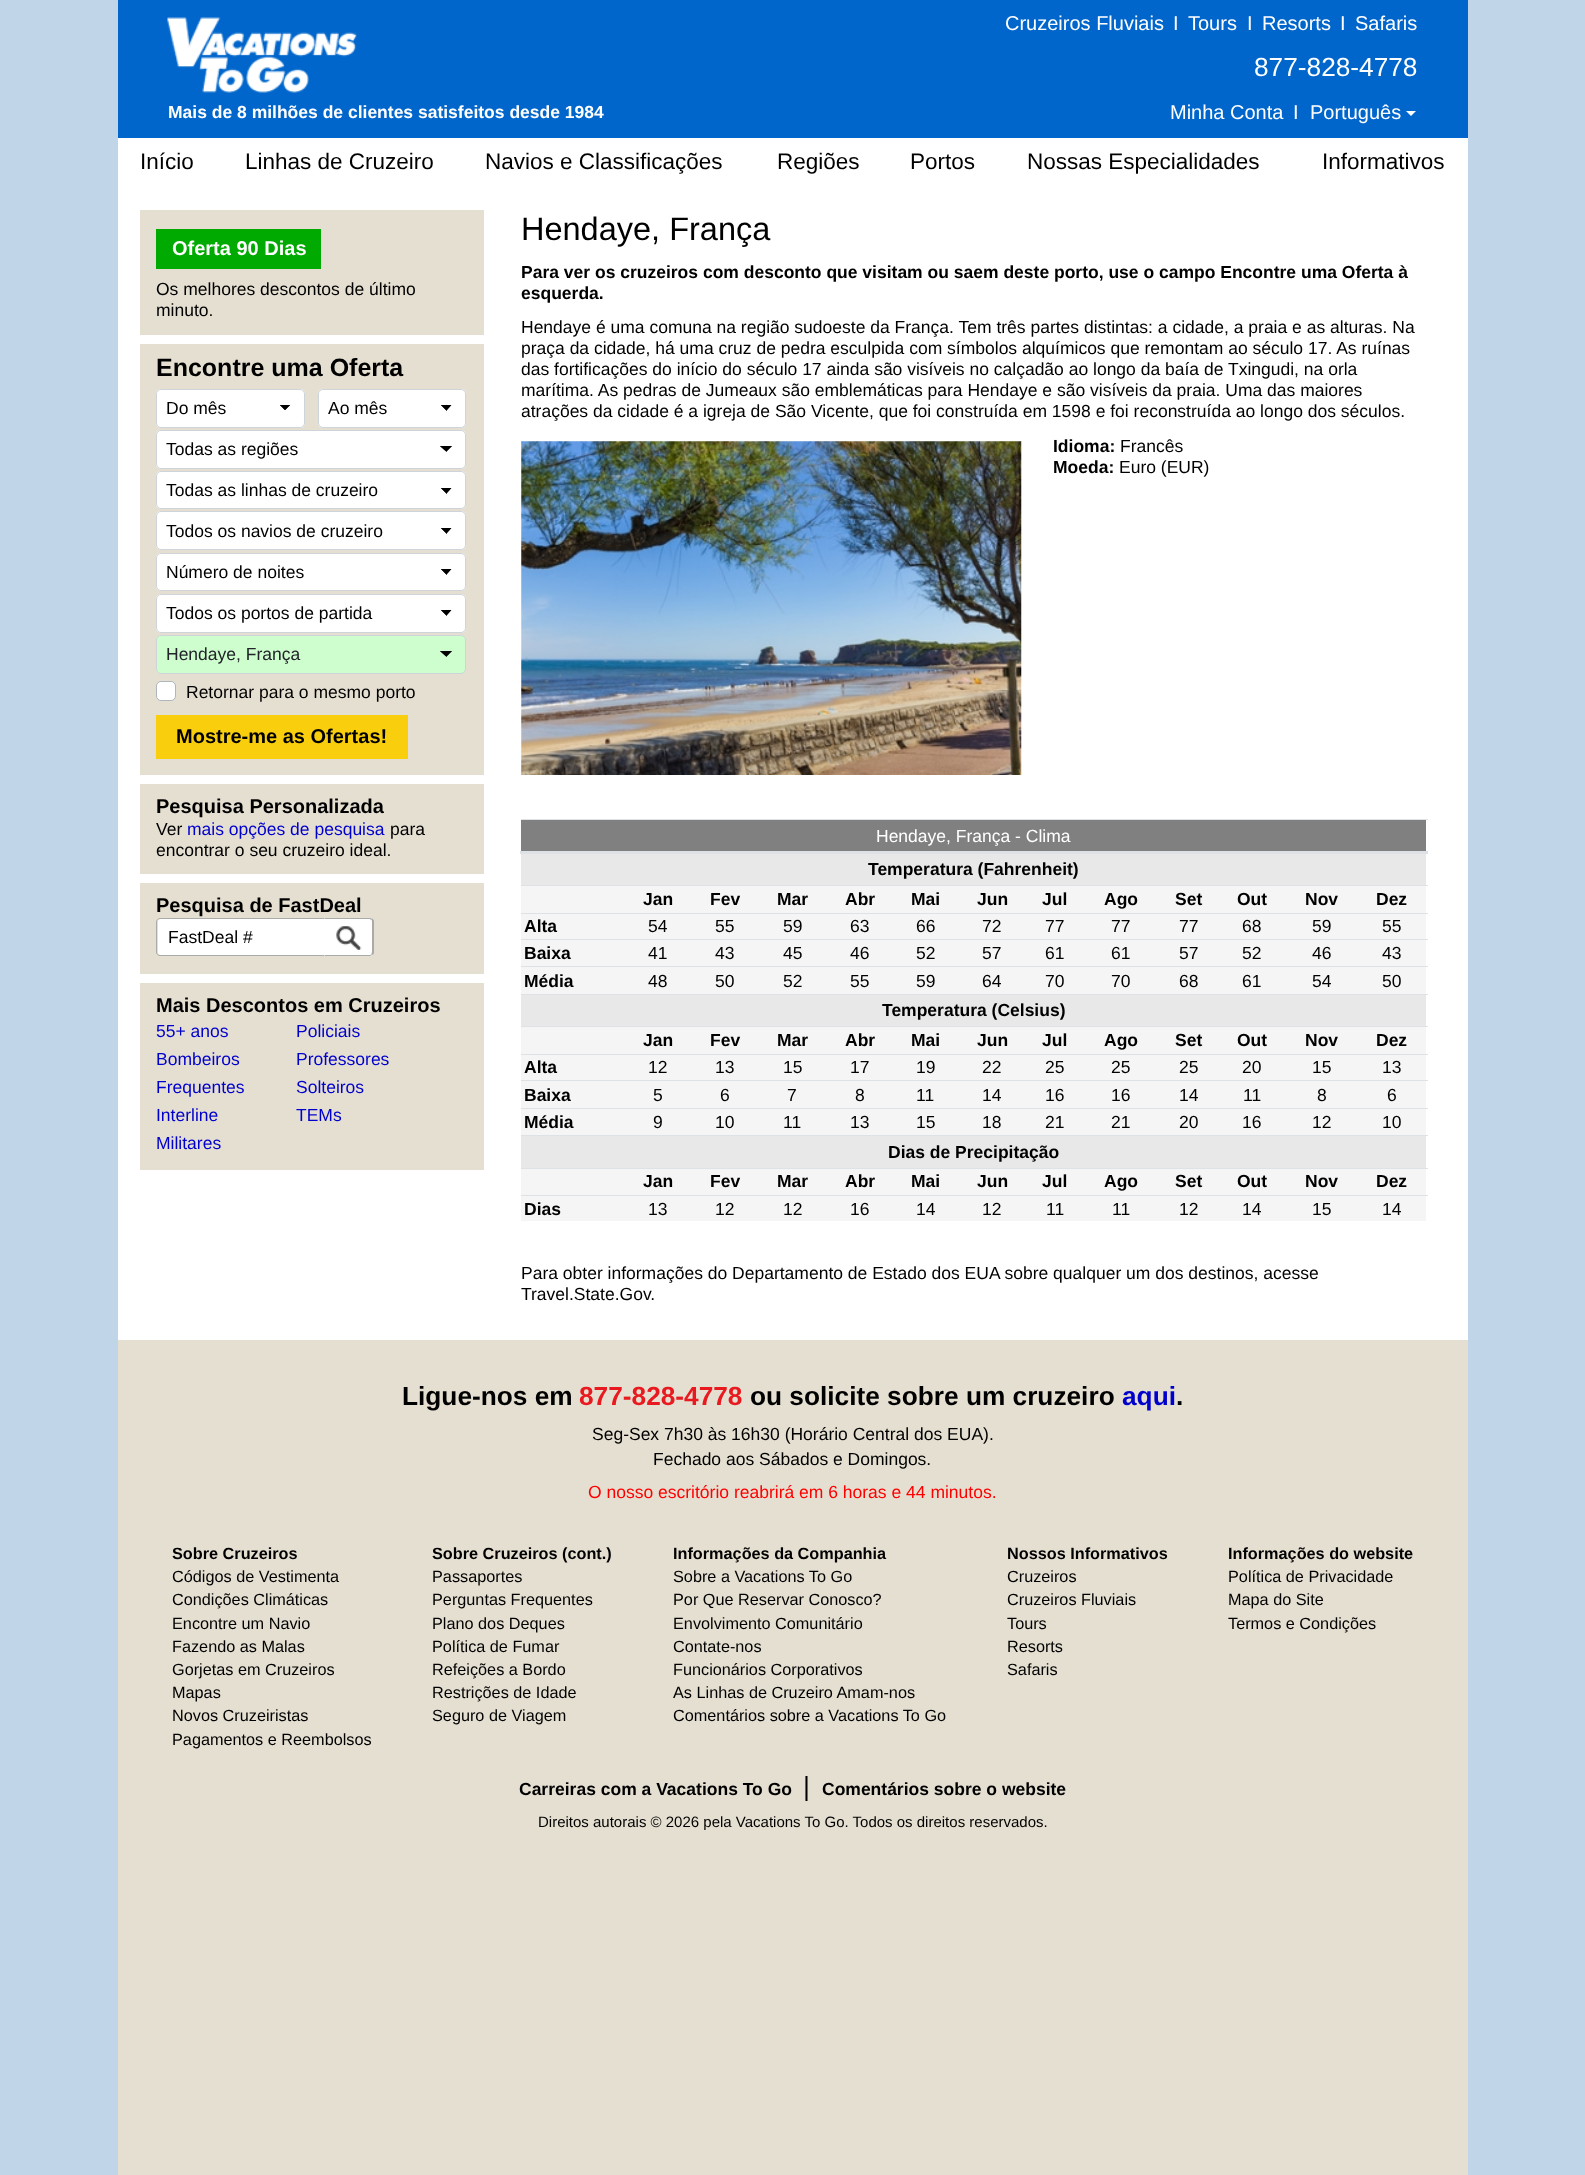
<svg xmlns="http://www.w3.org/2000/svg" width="1585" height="2175">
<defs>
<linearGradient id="g1" gradientUnits="userSpaceOnUse" x1="285" y1="405" x2="291" y2="411"><stop offset="0.4" stop-color="#000"/><stop offset="0.5" stop-color="#fff"/></linearGradient>
<linearGradient id="g2" gradientUnits="userSpaceOnUse" x1="279" y1="411" x2="285" y2="405"><stop offset="0.5" stop-color="#fff"/><stop offset="0.6" stop-color="#000"/></linearGradient>
<linearGradient id="g3" gradientUnits="userSpaceOnUse" x1="446" y1="405" x2="453" y2="411"><stop offset="0.4" stop-color="#000"/><stop offset="0.5" stop-color="#fff"/></linearGradient>
<linearGradient id="g4" gradientUnits="userSpaceOnUse" x1="440" y1="411" x2="446" y2="405"><stop offset="0.5" stop-color="#fff"/><stop offset="0.6" stop-color="#000"/></linearGradient>
<linearGradient id="g5" gradientUnits="userSpaceOnUse" x1="446" y1="446" x2="453" y2="453"><stop offset="0.4" stop-color="#000"/><stop offset="0.5" stop-color="#fff"/></linearGradient>
<linearGradient id="g6" gradientUnits="userSpaceOnUse" x1="440" y1="453" x2="446" y2="446"><stop offset="0.5" stop-color="#fff"/><stop offset="0.6" stop-color="#000"/></linearGradient>
<linearGradient id="g7" gradientUnits="userSpaceOnUse" x1="446" y1="488" x2="453" y2="494"><stop offset="0.4" stop-color="#000"/><stop offset="0.5" stop-color="#fff"/></linearGradient>
<linearGradient id="g8" gradientUnits="userSpaceOnUse" x1="440" y1="494" x2="446" y2="488"><stop offset="0.5" stop-color="#fff"/><stop offset="0.6" stop-color="#000"/></linearGradient>
<linearGradient id="g9" gradientUnits="userSpaceOnUse" x1="446" y1="528" x2="453" y2="534"><stop offset="0.4" stop-color="#000"/><stop offset="0.5" stop-color="#fff"/></linearGradient>
<linearGradient id="g10" gradientUnits="userSpaceOnUse" x1="440" y1="534" x2="446" y2="528"><stop offset="0.5" stop-color="#fff"/><stop offset="0.6" stop-color="#000"/></linearGradient>
<linearGradient id="g11" gradientUnits="userSpaceOnUse" x1="446" y1="569" x2="453" y2="575"><stop offset="0.4" stop-color="#000"/><stop offset="0.5" stop-color="#fff"/></linearGradient>
<linearGradient id="g12" gradientUnits="userSpaceOnUse" x1="440" y1="575" x2="446" y2="569"><stop offset="0.5" stop-color="#fff"/><stop offset="0.6" stop-color="#000"/></linearGradient>
<linearGradient id="g13" gradientUnits="userSpaceOnUse" x1="446" y1="610" x2="453" y2="616"><stop offset="0.4" stop-color="#000"/><stop offset="0.5" stop-color="#fff"/></linearGradient>
<linearGradient id="g14" gradientUnits="userSpaceOnUse" x1="440" y1="616" x2="446" y2="610"><stop offset="0.5" stop-color="#fff"/><stop offset="0.6" stop-color="#000"/></linearGradient>
<linearGradient id="g15" gradientUnits="userSpaceOnUse" x1="446" y1="651" x2="453" y2="658"><stop offset="0.4" stop-color="#000"/><stop offset="0.5" stop-color="#cefdce"/></linearGradient>
<linearGradient id="g16" gradientUnits="userSpaceOnUse" x1="440" y1="658" x2="446" y2="651"><stop offset="0.5" stop-color="#cefdce"/><stop offset="0.6" stop-color="#000"/></linearGradient>
</defs>
<rect width="100%" height="100%" fill="#c1d5e8"/>
<rect x="118" y="1340" width="1350" height="835" fill="#e5dfd1"/>
<rect x="118" y="138" width="1350" height="1202" fill="#fff"/>
<rect x="118" width="1350" height="138" fill="#0066cb"/>
<image x="167" y="17" width="190" height="76" href="media/1.png"/>
<text x="168" y="118" style="font-family:Liberation Sans;font-size:17.5px;font-weight:bold;fill:#fff">Mais de 8 milhões de clientes satisfeitos desde 1984</text>
<text x="1005" y="30" style="font-family:Liberation Sans;font-size:20px;fill:#fff">Cruzeiros Fluviais</text>
<text x="1173" y="30" style="font-family:Liberation Sans;font-size:20px;fill:#fff">I</text>
<text x="1188" y="30" style="font-family:Liberation Sans;font-size:20px;fill:#fff">Tours</text>
<text x="1247" y="30" style="font-family:Liberation Sans;font-size:20px;fill:#fff">I</text>
<text x="1262" y="30" style="font-family:Liberation Sans;font-size:20px;fill:#fff">Resorts</text>
<text x="1340" y="30" style="font-family:Liberation Sans;font-size:20px;fill:#fff">I</text>
<text x="1355" y="30" style="font-family:Liberation Sans;font-size:20px;fill:#fff">Safaris</text>
<text x="1254" y="76" style="font-family:Liberation Sans;font-size:26.25px;fill:#fff">877-828-4778</text>
<text x="1170" y="119" style="font-family:Liberation Sans;font-size:20px;fill:#fff">Minha Conta</text>
<text x="1293" y="119" style="font-family:Liberation Sans;font-size:20px;fill:#fff">I</text>
<text x="1310" y="119" style="font-family:Liberation Sans;font-size:20px;fill:#fff">Português</text>
<path d="M1406 111h10l-5 5z" fill="#fff"/>
<text x="140" y="169" style="font-family:Liberation Sans;font-size:22.5px;fill:#000">Início</text>
<text x="245" y="169" style="font-family:Liberation Sans;font-size:22.5px;fill:#000">Linhas de Cruzeiro</text>
<text x="485" y="169" style="font-family:Liberation Sans;font-size:22.5px;fill:#000">Navios e Classificações</text>
<text x="777" y="169" style="font-family:Liberation Sans;font-size:22.5px;fill:#000">Regiões</text>
<text x="910" y="169" style="font-family:Liberation Sans;font-size:22.5px;fill:#000">Portos</text>
<text x="1027" y="169" style="font-family:Liberation Sans;font-size:22.5px;fill:#000">Nossas Especialidades</text>
<text x="1322" y="169" style="font-family:Liberation Sans;font-size:22.5px;fill:#000">Informativos</text>
<rect x="140" y="210" width="344" height="125" fill="#e5dfd1"/>
<rect x="156" y="229" width="165" height="40" fill="#0a0"/>
<text x="172" y="255" style="font-family:Liberation Sans;font-size:20px;font-weight:bold;fill:#fff">Oferta 90 Dias</text>
<text x="156" y="295" style="font-family:Liberation Sans;font-size:17.5px;fill:#000">Os melhores descontos de último</text>
<text x="156" y="316" style="font-family:Liberation Sans;font-size:17.5px;fill:#000">minuto.</text>
<rect x="140" y="344" width="344" height="431" fill="#e5dfd1"/>
<text x="156" y="376" style="font-family:Liberation Sans;font-size:25px;font-weight:bold;fill:#000">Encontre uma Oferta</text>
<rect x="156" y="389" width="149" height="39" rx="5" fill="#fff"/>
<rect x="285" y="405" width="6" height="5" fill="url(#g1)"/>
<rect x="279" y="405" width="6" height="5" fill="url(#g2)"/>
<rect x="156.5" y="389.5" width="148" height="38" rx="4.5" fill="none" stroke="#ced4da"/>
<text x="166" y="414" style="font-family:Liberation Sans;font-size:17.5px;fill:#000">Do mês</text>
<rect x="318" y="389" width="148" height="39" rx="5" fill="#fff"/>
<rect x="446" y="405" width="7" height="6" fill="url(#g3)"/>
<rect x="440" y="405" width="6" height="5" fill="url(#g4)"/>
<rect x="318.5" y="389.5" width="147" height="38" rx="4.5" fill="none" stroke="#ced4da"/>
<text x="328" y="414" style="font-family:Liberation Sans;font-size:17.5px;fill:#000">Ao mês</text>
<rect x="156" y="430" width="310" height="39" rx="5" fill="#fff"/>
<rect x="446" y="446" width="7" height="6" fill="url(#g5)"/>
<rect x="440" y="446" width="6" height="7" fill="url(#g6)"/>
<rect x="156.5" y="430.5" width="309" height="38" rx="4.5" fill="none" stroke="#ced4da"/>
<text x="166" y="455" style="font-family:Liberation Sans;font-size:17.5px;fill:#000">Todas as regiões</text>
<rect x="156" y="471" width="310" height="38" rx="5" fill="#fff"/>
<rect x="446" y="488" width="7" height="6" fill="url(#g7)"/>
<rect x="440" y="488" width="6" height="5" fill="url(#g8)"/>
<rect x="156.5" y="471.5" width="309" height="37" rx="4.5" fill="none" stroke="#ced4da"/>
<text x="166" y="496" style="font-family:Liberation Sans;font-size:17.5px;fill:#000">Todas as linhas de cruzeiro</text>
<rect x="156" y="511" width="310" height="39" rx="5" fill="#fff"/>
<rect x="446" y="528" width="7" height="6" fill="url(#g9)"/>
<rect x="440" y="528" width="6" height="5" fill="url(#g10)"/>
<rect x="156.5" y="511.5" width="309" height="38" rx="4.5" fill="none" stroke="#ced4da"/>
<text x="166" y="537" style="font-family:Liberation Sans;font-size:17.5px;fill:#000">Todos os navios de cruzeiro</text>
<rect x="156" y="553" width="310" height="38" rx="5" fill="#fff"/>
<rect x="446" y="569" width="7" height="6" fill="url(#g11)"/>
<rect x="440" y="569" width="6" height="5" fill="url(#g12)"/>
<rect x="156.5" y="553.5" width="309" height="37" rx="4.5" fill="none" stroke="#ced4da"/>
<text x="166" y="578" style="font-family:Liberation Sans;font-size:17.5px;fill:#000">Número de noites</text>
<rect x="156" y="594" width="310" height="39" rx="5" fill="#fff"/>
<rect x="446" y="610" width="7" height="6" fill="url(#g13)"/>
<rect x="440" y="610" width="6" height="5" fill="url(#g14)"/>
<rect x="156.5" y="594.5" width="309" height="38" rx="4.5" fill="none" stroke="#ced4da"/>
<text x="166" y="619" style="font-family:Liberation Sans;font-size:17.5px;fill:#000">Todos os portos de partida</text>
<rect x="156" y="635" width="310" height="39" rx="5" fill="#cefdce"/>
<rect x="446" y="651" width="7" height="6" fill="url(#g15)"/>
<rect x="440" y="651" width="6" height="7" fill="url(#g16)"/>
<rect x="156.5" y="635.5" width="309" height="38" rx="4.5" fill="none" stroke="#ced4da"/>
<text x="166" y="660" style="font-family:Liberation Sans;font-size:17.5px;fill:#212529">Hendaye, França</text>
<rect x="156.5" y="681.5" width="19" height="19" rx="4.5" fill="#fff" stroke="#adb5bd"/>
<text x="186" y="698" style="font-family:Liberation Sans;font-size:17.5px;fill:#000">Retornar para o mesmo porto</text>
<rect x="156" y="715" width="252" height="44" fill="#f9ce0c"/>
<text x="176" y="743" style="font-family:Liberation Sans;font-size:20px;font-weight:bold;fill:#000">Mostre-me as Ofertas!</text>
<rect x="140" y="784" width="344" height="90" fill="#e5dfd1"/>
<text x="156" y="813" style="font-family:Liberation Sans;font-size:20px;font-weight:bold;fill:#000">Pesquisa Personalizada</text>
<text x="156" y="835" style="font-family:Liberation Sans;font-size:17.5px;fill:#000">Ver</text>
<text x="187" y="835" style="font-family:Liberation Sans;font-size:17.5px;fill:#0000cd">mais opções de pesquisa</text>
<text x="390" y="835" style="font-family:Liberation Sans;font-size:17.5px;fill:#000">para</text>
<text x="156" y="856" style="font-family:Liberation Sans;font-size:17.5px;fill:#000">encontrar o seu cruzeiro ideal.</text>
<rect x="140" y="883" width="344" height="91" fill="#e5dfd1"/>
<text x="156" y="912" style="font-family:Liberation Sans;font-size:20px;font-weight:bold;fill:#000">Pesquisa de FastDeal</text>
<path d="M160.5 919h163.5v36h-163.5c-1.5 0-2.5-1-2.5-2.5v-31c0-1.5 1-2.5 2.5-2.5z" fill="#fff"/>
<path d="M160 918.5h164.5v37h-164.5c-2 0-3.5-1.5-3.5-3.5v-30c0-2 1.5-3.5 3.5-3.5z" fill="none" stroke="#aaa"/>
<text x="168" y="943" style="font-family:Liberation Sans;font-size:17.5px;fill:#000">FastDeal #</text>
<path d="M324 918h46c2 0 4 2 4 4v30c0 2-2 4-4 4h-46z" fill="#fff"/>
<path d="M373 919l-3-1h-46l1 1h45l1 1z" fill="#aaa"/>
<path d="M372.5 918.5l1.5 2v33l-1.5 1.5l-1-1l.5-2v-30c0-1 0-1.5-.5-2z" fill="#aaa"/>
<path d="M372 955l-2 1h-46l1-1h45l2-1z" fill="#aaa"/>
<image x="336" y="926" width="26" height="24" href="media/2.png"/>
<rect x="140" y="983" width="344" height="187" fill="#e5dfd1"/>
<text x="156" y="1012" style="font-family:Liberation Sans;font-size:20px;font-weight:bold;fill:#000">Mais Descontos em Cruzeiros</text>
<text x="156" y="1037" style="font-family:Liberation Sans;font-size:17.5px;fill:#0000cd">55+ anos</text>
<text x="156" y="1065" style="font-family:Liberation Sans;font-size:17.5px;fill:#0000cd">Bombeiros</text>
<text x="156" y="1093" style="font-family:Liberation Sans;font-size:17.5px;fill:#0000cd">Frequentes</text>
<text x="156" y="1121" style="font-family:Liberation Sans;font-size:17.5px;fill:#0000cd">Interline</text>
<text x="156" y="1149" style="font-family:Liberation Sans;font-size:17.5px;fill:#0000cd">Militares</text>
<text x="296" y="1037" style="font-family:Liberation Sans;font-size:17.5px;fill:#0000cd">Policiais</text>
<text x="296" y="1065" style="font-family:Liberation Sans;font-size:17.5px;fill:#0000cd">Professores</text>
<text x="296" y="1093" style="font-family:Liberation Sans;font-size:17.5px;fill:#0000cd">Solteiros</text>
<text x="296" y="1121" style="font-family:Liberation Sans;font-size:17.5px;fill:#0000cd">TEMs</text>
<text x="521" y="240" style="font-family:Liberation Sans;font-size:32.5px;fill:#000">Hendaye, França</text>
<text x="521" y="278" style="font-family:Liberation Sans;font-size:17.5px;font-weight:bold;fill:#000">Para ver os cruzeiros com desconto que visitam ou saem deste porto, use o campo Encontre uma Oferta à</text>
<text x="521" y="299" style="font-family:Liberation Sans;font-size:17.5px;font-weight:bold;fill:#000">esquerda.</text>
<text x="521" y="333" style="font-family:Liberation Sans;font-size:17.5px;fill:#000">Hendaye é uma comuna na região sudoeste da França. Tem três partes distintas: a cidade, a praia e as alturas. Na</text>
<text x="521" y="354" style="font-family:Liberation Sans;font-size:17.5px;fill:#000">praça da cidade, há uma cruz de pedra esculpida com símbolos alquímicos que remontam ao século 17. As ruínas</text>
<text x="521" y="375" style="font-family:Liberation Sans;font-size:17.5px;fill:#000">das fortificações do início do século 17 ainda são visíveis no calçadão ao longo da baía de Txingudi, na orla</text>
<text x="521" y="396" style="font-family:Liberation Sans;font-size:17.5px;fill:#000">marítima. As pedras de Jumeaux são emblemáticas para Hendaye e são visíveis da praia. Uma das maiores</text>
<text x="521" y="417" style="font-family:Liberation Sans;font-size:17.5px;fill:#000">atrações da cidade é a igreja de São Vicente, que foi construída em 1598 e foi reconstruída ao longo dos séculos.</text>
<image x="521" y="441" width="501" height="334" href="media/3.png"/>
<text x="1053" y="452" style="font-family:Liberation Sans;font-size:17.5px;font-weight:bold;fill:#000">Idioma:</text>
<text x="1120" y="452" style="font-family:Liberation Sans;font-size:17.5px;fill:#000">Francês</text>
<text x="1053" y="473" style="font-family:Liberation Sans;font-size:17.5px;font-weight:bold;fill:#000">Moeda:</text>
<text x="1119" y="473" style="font-family:Liberation Sans;font-size:17.5px;fill:#000">Euro (EUR)</text>
<rect x="521" y="820" width="905" height="31" fill="#808080"/>
<rect x="521" y="819" width="907" height="1" fill="#dee2e6"/>
<rect x="520" y="851" width="908" height="3" fill="#dee2e6"/>
<text x="876" y="842" style="font-family:Liberation Sans;font-size:17.5px;fill:#fff">Hendaye, França - Clima</text>
<rect x="521" y="854" width="905" height="31" fill="#e8e8e8"/>
<text x="868" y="875" style="font-family:Liberation Sans;font-size:17.5px;font-weight:bold;fill:#000">Temperatura (Fahrenheit)</text>
<rect x="521" y="886" width="905" height="27" fill="#f5f5f5"/>
<text x="643" y="905" style="font-family:Liberation Sans;font-size:17.5px;font-weight:bold;fill:#000">Jan</text>
<text x="710" y="905" style="font-family:Liberation Sans;font-size:17.5px;font-weight:bold;fill:#000">Fev</text>
<text x="777" y="905" style="font-family:Liberation Sans;font-size:17.5px;font-weight:bold;fill:#000">Mar</text>
<text x="845" y="905" style="font-family:Liberation Sans;font-size:17.5px;font-weight:bold;fill:#000">Abr</text>
<text x="911" y="905" style="font-family:Liberation Sans;font-size:17.5px;font-weight:bold;fill:#000">Mai</text>
<text x="977" y="905" style="font-family:Liberation Sans;font-size:17.5px;font-weight:bold;fill:#000">Jun</text>
<text x="1042" y="905" style="font-family:Liberation Sans;font-size:17.5px;font-weight:bold;fill:#000">Jul</text>
<text x="1104" y="905" style="font-family:Liberation Sans;font-size:17.5px;font-weight:bold;fill:#000">Ago</text>
<text x="1175" y="905" style="font-family:Liberation Sans;font-size:17.5px;font-weight:bold;fill:#000">Set</text>
<text x="1237" y="905" style="font-family:Liberation Sans;font-size:17.5px;font-weight:bold;fill:#000">Out</text>
<text x="1305" y="905" style="font-family:Liberation Sans;font-size:17.5px;font-weight:bold;fill:#000">Nov</text>
<rect x="521" y="885" width="907" height="1" fill="#dee2e6"/>
<text x="1376" y="905" style="font-family:Liberation Sans;font-size:17.5px;font-weight:bold;fill:#000">Dez</text>
<rect x="521" y="914" width="905" height="25" fill="#f5f5f5"/>
<text x="524" y="932" style="font-family:Liberation Sans;font-size:17.5px;font-weight:bold;fill:#000">Alta</text>
<text x="648" y="932" style="font-family:Liberation Sans;font-size:17.5px;fill:#000">54</text>
<text x="715" y="932" style="font-family:Liberation Sans;font-size:17.5px;fill:#000">55</text>
<text x="783" y="932" style="font-family:Liberation Sans;font-size:17.5px;fill:#000">59</text>
<text x="850" y="932" style="font-family:Liberation Sans;font-size:17.5px;fill:#000">63</text>
<text x="916" y="932" style="font-family:Liberation Sans;font-size:17.5px;fill:#000">66</text>
<text x="982" y="932" style="font-family:Liberation Sans;font-size:17.5px;fill:#000">72</text>
<text x="1045" y="932" style="font-family:Liberation Sans;font-size:17.5px;fill:#000">77</text>
<text x="1111" y="932" style="font-family:Liberation Sans;font-size:17.5px;fill:#000">77</text>
<text x="1179" y="932" style="font-family:Liberation Sans;font-size:17.5px;fill:#000">77</text>
<text x="1242" y="932" style="font-family:Liberation Sans;font-size:17.5px;fill:#000">68</text>
<text x="1312" y="932" style="font-family:Liberation Sans;font-size:17.5px;fill:#000">59</text>
<rect x="521" y="913" width="907" height="1" fill="#dee2e6"/>
<text x="1382" y="932" style="font-family:Liberation Sans;font-size:17.5px;fill:#000">55</text>
<rect x="521" y="940" width="905" height="28" fill="#f5f5f5"/>
<text x="524" y="959" style="font-family:Liberation Sans;font-size:17.5px;font-weight:bold;fill:#000">Baixa</text>
<text x="648" y="959" style="font-family:Liberation Sans;font-size:17.5px;fill:#000">41</text>
<text x="715" y="959" style="font-family:Liberation Sans;font-size:17.5px;fill:#000">43</text>
<text x="783" y="959" style="font-family:Liberation Sans;font-size:17.5px;fill:#000">45</text>
<text x="850" y="959" style="font-family:Liberation Sans;font-size:17.5px;fill:#000">46</text>
<text x="916" y="959" style="font-family:Liberation Sans;font-size:17.5px;fill:#000">52</text>
<text x="982" y="959" style="font-family:Liberation Sans;font-size:17.5px;fill:#000">57</text>
<text x="1045" y="959" style="font-family:Liberation Sans;font-size:17.5px;fill:#000">61</text>
<text x="1111" y="959" style="font-family:Liberation Sans;font-size:17.5px;fill:#000">61</text>
<text x="1179" y="959" style="font-family:Liberation Sans;font-size:17.5px;fill:#000">57</text>
<text x="1242" y="959" style="font-family:Liberation Sans;font-size:17.5px;fill:#000">52</text>
<text x="1312" y="959" style="font-family:Liberation Sans;font-size:17.5px;fill:#000">46</text>
<rect x="521" y="939" width="907" height="1" fill="#dee2e6"/>
<text x="1382" y="959" style="font-family:Liberation Sans;font-size:17.5px;fill:#000">43</text>
<rect x="521" y="968" width="905" height="26" fill="#f5f5f5"/>
<text x="524" y="987" style="font-family:Liberation Sans;font-size:17.5px;font-weight:bold;fill:#000">Média</text>
<text x="648" y="987" style="font-family:Liberation Sans;font-size:17.5px;fill:#000">48</text>
<text x="715" y="987" style="font-family:Liberation Sans;font-size:17.5px;fill:#000">50</text>
<text x="783" y="987" style="font-family:Liberation Sans;font-size:17.5px;fill:#000">52</text>
<text x="850" y="987" style="font-family:Liberation Sans;font-size:17.5px;fill:#000">55</text>
<text x="916" y="987" style="font-family:Liberation Sans;font-size:17.5px;fill:#000">59</text>
<text x="982" y="987" style="font-family:Liberation Sans;font-size:17.5px;fill:#000">64</text>
<text x="1045" y="987" style="font-family:Liberation Sans;font-size:17.5px;fill:#000">70</text>
<text x="1111" y="987" style="font-family:Liberation Sans;font-size:17.5px;fill:#000">70</text>
<text x="1179" y="987" style="font-family:Liberation Sans;font-size:17.5px;fill:#000">68</text>
<text x="1242" y="987" style="font-family:Liberation Sans;font-size:17.5px;fill:#000">61</text>
<text x="1312" y="987" style="font-family:Liberation Sans;font-size:17.5px;fill:#000">54</text>
<rect x="521" y="966" width="907" height="1" fill="#dee2e6"/>
<text x="1382" y="987" style="font-family:Liberation Sans;font-size:17.5px;fill:#000">50</text>
<rect x="521" y="995" width="905" height="31" fill="#e8e8e8"/>
<rect x="521" y="994" width="907" height="1" fill="#dee2e6"/>
<text x="882" y="1016" style="font-family:Liberation Sans;font-size:17.5px;font-weight:bold;fill:#000">Temperatura (Celsius)</text>
<rect x="521" y="1027" width="905" height="27" fill="#f5f5f5"/>
<text x="643" y="1046" style="font-family:Liberation Sans;font-size:17.5px;font-weight:bold;fill:#000">Jan</text>
<text x="710" y="1046" style="font-family:Liberation Sans;font-size:17.5px;font-weight:bold;fill:#000">Fev</text>
<text x="777" y="1046" style="font-family:Liberation Sans;font-size:17.5px;font-weight:bold;fill:#000">Mar</text>
<text x="845" y="1046" style="font-family:Liberation Sans;font-size:17.5px;font-weight:bold;fill:#000">Abr</text>
<text x="911" y="1046" style="font-family:Liberation Sans;font-size:17.5px;font-weight:bold;fill:#000">Mai</text>
<text x="977" y="1046" style="font-family:Liberation Sans;font-size:17.5px;font-weight:bold;fill:#000">Jun</text>
<text x="1042" y="1046" style="font-family:Liberation Sans;font-size:17.5px;font-weight:bold;fill:#000">Jul</text>
<text x="1104" y="1046" style="font-family:Liberation Sans;font-size:17.5px;font-weight:bold;fill:#000">Ago</text>
<text x="1175" y="1046" style="font-family:Liberation Sans;font-size:17.5px;font-weight:bold;fill:#000">Set</text>
<text x="1237" y="1046" style="font-family:Liberation Sans;font-size:17.5px;font-weight:bold;fill:#000">Out</text>
<text x="1305" y="1046" style="font-family:Liberation Sans;font-size:17.5px;font-weight:bold;fill:#000">Nov</text>
<rect x="521" y="1026" width="907" height="1" fill="#dee2e6"/>
<text x="1376" y="1046" style="font-family:Liberation Sans;font-size:17.5px;font-weight:bold;fill:#000">Dez</text>
<rect x="521" y="1055" width="905" height="25" fill="#f5f5f5"/>
<text x="524" y="1073" style="font-family:Liberation Sans;font-size:17.5px;font-weight:bold;fill:#000">Alta</text>
<text x="648" y="1073" style="font-family:Liberation Sans;font-size:17.5px;fill:#000">12</text>
<text x="715" y="1073" style="font-family:Liberation Sans;font-size:17.5px;fill:#000">13</text>
<text x="783" y="1073" style="font-family:Liberation Sans;font-size:17.5px;fill:#000">15</text>
<text x="850" y="1073" style="font-family:Liberation Sans;font-size:17.5px;fill:#000">17</text>
<text x="916" y="1073" style="font-family:Liberation Sans;font-size:17.5px;fill:#000">19</text>
<text x="982" y="1073" style="font-family:Liberation Sans;font-size:17.5px;fill:#000">22</text>
<text x="1045" y="1073" style="font-family:Liberation Sans;font-size:17.5px;fill:#000">25</text>
<text x="1111" y="1073" style="font-family:Liberation Sans;font-size:17.5px;fill:#000">25</text>
<text x="1179" y="1073" style="font-family:Liberation Sans;font-size:17.5px;fill:#000">25</text>
<text x="1242" y="1073" style="font-family:Liberation Sans;font-size:17.5px;fill:#000">20</text>
<text x="1312" y="1073" style="font-family:Liberation Sans;font-size:17.5px;fill:#000">15</text>
<rect x="521" y="1054" width="907" height="1" fill="#dee2e6"/>
<text x="1382" y="1073" style="font-family:Liberation Sans;font-size:17.5px;fill:#000">13</text>
<rect x="521" y="1081" width="905" height="27" fill="#f5f5f5"/>
<text x="524" y="1101" style="font-family:Liberation Sans;font-size:17.5px;font-weight:bold;fill:#000">Baixa</text>
<text x="653" y="1101" style="font-family:Liberation Sans;font-size:17.5px;fill:#000">5</text>
<text x="720" y="1101" style="font-family:Liberation Sans;font-size:17.5px;fill:#000">6</text>
<text x="787" y="1101" style="font-family:Liberation Sans;font-size:17.5px;fill:#000">7</text>
<text x="855" y="1101" style="font-family:Liberation Sans;font-size:17.5px;fill:#000">8</text>
<text x="916" y="1101" style="font-family:Liberation Sans;font-size:17.5px;fill:#000">11</text>
<text x="982" y="1101" style="font-family:Liberation Sans;font-size:17.5px;fill:#000">14</text>
<text x="1045" y="1101" style="font-family:Liberation Sans;font-size:17.5px;fill:#000">16</text>
<text x="1111" y="1101" style="font-family:Liberation Sans;font-size:17.5px;fill:#000">16</text>
<text x="1179" y="1101" style="font-family:Liberation Sans;font-size:17.5px;fill:#000">14</text>
<text x="1243" y="1101" style="font-family:Liberation Sans;font-size:17.5px;fill:#000">11</text>
<text x="1317" y="1101" style="font-family:Liberation Sans;font-size:17.5px;fill:#000">8</text>
<rect x="521" y="1080" width="907" height="1" fill="#dee2e6"/>
<text x="1387" y="1101" style="font-family:Liberation Sans;font-size:17.5px;fill:#000">6</text>
<rect x="521" y="1109" width="905" height="26" fill="#f5f5f5"/>
<text x="524" y="1128" style="font-family:Liberation Sans;font-size:17.5px;font-weight:bold;fill:#000">Média</text>
<text x="653" y="1128" style="font-family:Liberation Sans;font-size:17.5px;fill:#000">9</text>
<text x="715" y="1128" style="font-family:Liberation Sans;font-size:17.5px;fill:#000">10</text>
<text x="783" y="1128" style="font-family:Liberation Sans;font-size:17.5px;fill:#000">11</text>
<text x="850" y="1128" style="font-family:Liberation Sans;font-size:17.5px;fill:#000">13</text>
<text x="916" y="1128" style="font-family:Liberation Sans;font-size:17.5px;fill:#000">15</text>
<text x="982" y="1128" style="font-family:Liberation Sans;font-size:17.5px;fill:#000">18</text>
<text x="1045" y="1128" style="font-family:Liberation Sans;font-size:17.5px;fill:#000">21</text>
<text x="1111" y="1128" style="font-family:Liberation Sans;font-size:17.5px;fill:#000">21</text>
<text x="1179" y="1128" style="font-family:Liberation Sans;font-size:17.5px;fill:#000">20</text>
<text x="1242" y="1128" style="font-family:Liberation Sans;font-size:17.5px;fill:#000">16</text>
<text x="1312" y="1128" style="font-family:Liberation Sans;font-size:17.5px;fill:#000">12</text>
<rect x="521" y="1108" width="907" height="1" fill="#dee2e6"/>
<text x="1382" y="1128" style="font-family:Liberation Sans;font-size:17.5px;fill:#000">10</text>
<rect x="521" y="1136" width="905" height="32" fill="#e8e8e8"/>
<rect x="521" y="1135" width="907" height="1" fill="#dee2e6"/>
<text x="888" y="1158" style="font-family:Liberation Sans;font-size:17.5px;font-weight:bold;fill:#000">Dias de Precipitação</text>
<rect x="521" y="1169" width="905" height="26" fill="#f5f5f5"/>
<text x="643" y="1187" style="font-family:Liberation Sans;font-size:17.5px;font-weight:bold;fill:#000">Jan</text>
<text x="710" y="1187" style="font-family:Liberation Sans;font-size:17.5px;font-weight:bold;fill:#000">Fev</text>
<text x="777" y="1187" style="font-family:Liberation Sans;font-size:17.5px;font-weight:bold;fill:#000">Mar</text>
<text x="845" y="1187" style="font-family:Liberation Sans;font-size:17.5px;font-weight:bold;fill:#000">Abr</text>
<text x="911" y="1187" style="font-family:Liberation Sans;font-size:17.5px;font-weight:bold;fill:#000">Mai</text>
<text x="977" y="1187" style="font-family:Liberation Sans;font-size:17.5px;font-weight:bold;fill:#000">Jun</text>
<text x="1042" y="1187" style="font-family:Liberation Sans;font-size:17.5px;font-weight:bold;fill:#000">Jul</text>
<text x="1104" y="1187" style="font-family:Liberation Sans;font-size:17.5px;font-weight:bold;fill:#000">Ago</text>
<text x="1175" y="1187" style="font-family:Liberation Sans;font-size:17.5px;font-weight:bold;fill:#000">Set</text>
<text x="1237" y="1187" style="font-family:Liberation Sans;font-size:17.5px;font-weight:bold;fill:#000">Out</text>
<text x="1305" y="1187" style="font-family:Liberation Sans;font-size:17.5px;font-weight:bold;fill:#000">Nov</text>
<rect x="521" y="1168" width="907" height="1" fill="#dee2e6"/>
<text x="1376" y="1187" style="font-family:Liberation Sans;font-size:17.5px;font-weight:bold;fill:#000">Dez</text>
<rect x="521" y="1196" width="905" height="25" fill="#f5f5f5"/>
<text x="524" y="1215" style="font-family:Liberation Sans;font-size:17.5px;font-weight:bold;fill:#000">Dias</text>
<text x="648" y="1215" style="font-family:Liberation Sans;font-size:17.5px;fill:#000">13</text>
<text x="715" y="1215" style="font-family:Liberation Sans;font-size:17.5px;fill:#000">12</text>
<text x="783" y="1215" style="font-family:Liberation Sans;font-size:17.5px;fill:#000">12</text>
<text x="850" y="1215" style="font-family:Liberation Sans;font-size:17.5px;fill:#000">16</text>
<text x="916" y="1215" style="font-family:Liberation Sans;font-size:17.5px;fill:#000">14</text>
<text x="982" y="1215" style="font-family:Liberation Sans;font-size:17.5px;fill:#000">12</text>
<text x="1046" y="1215" style="font-family:Liberation Sans;font-size:17.5px;fill:#000">11</text>
<text x="1112" y="1215" style="font-family:Liberation Sans;font-size:17.5px;fill:#000">11</text>
<text x="1179" y="1215" style="font-family:Liberation Sans;font-size:17.5px;fill:#000">12</text>
<text x="1242" y="1215" style="font-family:Liberation Sans;font-size:17.5px;fill:#000">14</text>
<text x="1312" y="1215" style="font-family:Liberation Sans;font-size:17.5px;fill:#000">15</text>
<rect x="521" y="1195" width="907" height="1" fill="#dee2e6"/>
<text x="1382" y="1215" style="font-family:Liberation Sans;font-size:17.5px;fill:#000">14</text>
<text x="521" y="1279" style="font-family:Liberation Sans;font-size:17.5px;fill:#000">Para obter informações do Departamento de Estado dos EUA sobre qualquer um dos destinos, acesse</text>
<text x="521" y="1300" style="font-family:Liberation Sans;font-size:17.5px;fill:#000">Travel.State.Gov.</text>
<text x="402" y="1405" style="font-family:Liberation Sans;font-size:26.25px;font-weight:bold;fill:#000">Ligue-nos em</text>
<text x="579" y="1405" style="font-family:Liberation Sans;font-size:26.25px;font-weight:bold;fill:#e8191f">877-828-4778</text>
<text x="750" y="1405" style="font-family:Liberation Sans;font-size:26.25px;font-weight:bold;fill:#000">ou solicite sobre um cruzeiro</text>
<text x="1122" y="1405" style="font-family:Liberation Sans;font-size:26.25px;font-weight:bold;fill:#0000cd">aqui</text>
<text x="1176" y="1405" style="font-family:Liberation Sans;font-size:26.25px;font-weight:bold;fill:#000">.</text>
<text x="592" y="1440" style="font-family:Liberation Sans;font-size:17.5px;fill:#000">Seg-Sex 7h30 às 16h30 (Horário Central dos EUA).</text>
<text x="653" y="1465" style="font-family:Liberation Sans;font-size:17.5px;fill:#000">Fechado aos Sábados e Domingos.</text>
<text x="588" y="1498" style="font-family:Liberation Sans;font-size:17.5px;fill:#f00">O nosso escritório reabrirá em 6 horas e 44 minutos.</text>
<text x="172" y="1559" style="font-family:Liberation Sans;font-size:16.25px;font-weight:bold;fill:#000">Sobre Cruzeiros</text>
<text x="172" y="1582" style="font-family:Liberation Sans;font-size:16.25px;fill:#000">Códigos de Vestimenta</text>
<text x="172" y="1605" style="font-family:Liberation Sans;font-size:16.25px;fill:#000">Condições Climáticas</text>
<text x="172" y="1629" style="font-family:Liberation Sans;font-size:16.25px;fill:#000">Encontre um Navio</text>
<text x="172" y="1652" style="font-family:Liberation Sans;font-size:16.25px;fill:#000">Fazendo as Malas</text>
<text x="172" y="1675" style="font-family:Liberation Sans;font-size:16.25px;fill:#000">Gorjetas em Cruzeiros</text>
<text x="172" y="1698" style="font-family:Liberation Sans;font-size:16.25px;fill:#000">Mapas</text>
<text x="172" y="1721" style="font-family:Liberation Sans;font-size:16.25px;fill:#000">Novos Cruzeiristas</text>
<text x="172" y="1745" style="font-family:Liberation Sans;font-size:16.25px;fill:#000">Pagamentos e Reembolsos</text>
<text x="432" y="1559" style="font-family:Liberation Sans;font-size:16.25px;font-weight:bold;fill:#000">Sobre Cruzeiros (cont.)</text>
<text x="432" y="1582" style="font-family:Liberation Sans;font-size:16.25px;fill:#000">Passaportes</text>
<text x="432" y="1605" style="font-family:Liberation Sans;font-size:16.25px;fill:#000">Perguntas Frequentes</text>
<text x="432" y="1629" style="font-family:Liberation Sans;font-size:16.25px;fill:#000">Plano dos Deques</text>
<text x="432" y="1652" style="font-family:Liberation Sans;font-size:16.25px;fill:#000">Política de Fumar</text>
<text x="432" y="1675" style="font-family:Liberation Sans;font-size:16.25px;fill:#000">Refeições a Bordo</text>
<text x="432" y="1698" style="font-family:Liberation Sans;font-size:16.25px;fill:#000">Restrições de Idade</text>
<text x="432" y="1721" style="font-family:Liberation Sans;font-size:16.25px;fill:#000">Seguro de Viagem</text>
<text x="673" y="1559" style="font-family:Liberation Sans;font-size:16.25px;font-weight:bold;fill:#000">Informações da Companhia</text>
<text x="673" y="1582" style="font-family:Liberation Sans;font-size:16.25px;fill:#000">Sobre a Vacations To Go</text>
<text x="673" y="1605" style="font-family:Liberation Sans;font-size:16.25px;fill:#000">Por Que Reservar Conosco?</text>
<text x="673" y="1629" style="font-family:Liberation Sans;font-size:16.25px;fill:#000">Envolvimento Comunitário</text>
<text x="673" y="1652" style="font-family:Liberation Sans;font-size:16.25px;fill:#000">Contate-nos</text>
<text x="673" y="1675" style="font-family:Liberation Sans;font-size:16.25px;fill:#000">Funcionários Corporativos</text>
<text x="673" y="1698" style="font-family:Liberation Sans;font-size:16.25px;fill:#000">As Linhas de Cruzeiro Amam-nos</text>
<text x="673" y="1721" style="font-family:Liberation Sans;font-size:16.25px;fill:#000">Comentários sobre a Vacations To Go</text>
<text x="1007" y="1559" style="font-family:Liberation Sans;font-size:16.25px;font-weight:bold;fill:#000">Nossos Informativos</text>
<text x="1007" y="1582" style="font-family:Liberation Sans;font-size:16.25px;fill:#000">Cruzeiros</text>
<text x="1007" y="1605" style="font-family:Liberation Sans;font-size:16.25px;fill:#000">Cruzeiros Fluviais</text>
<text x="1007" y="1629" style="font-family:Liberation Sans;font-size:16.25px;fill:#000">Tours</text>
<text x="1007" y="1652" style="font-family:Liberation Sans;font-size:16.25px;fill:#000">Resorts</text>
<text x="1007" y="1675" style="font-family:Liberation Sans;font-size:16.25px;fill:#000">Safaris</text>
<text x="1228" y="1559" style="font-family:Liberation Sans;font-size:16.25px;font-weight:bold;fill:#000">Informações do website</text>
<text x="1228" y="1582" style="font-family:Liberation Sans;font-size:16.25px;fill:#000">Política de Privacidade</text>
<text x="1228" y="1605" style="font-family:Liberation Sans;font-size:16.25px;fill:#000">Mapa do Site</text>
<text x="1228" y="1629" style="font-family:Liberation Sans;font-size:16.25px;fill:#000">Termos e Condições</text>
<text x="519" y="1795" style="font-family:Liberation Sans;font-size:17.5px;font-weight:bold;fill:#000">Carreiras com a Vacations To Go</text>
<text x="796" y="1795" style="font-family:DejaVu Sans;font-size:25px;fill:#000">❘</text>
<text x="822" y="1795" style="font-family:Liberation Sans;font-size:17.5px;font-weight:bold;fill:#000">Comentários sobre o website</text>
<text x="538" y="1827" style="font-family:Liberation Sans;font-size:15px;fill:#000">Direitos autorais © 2026 pela Vacations To Go. Todos os direitos reservados.</text>
</svg>
